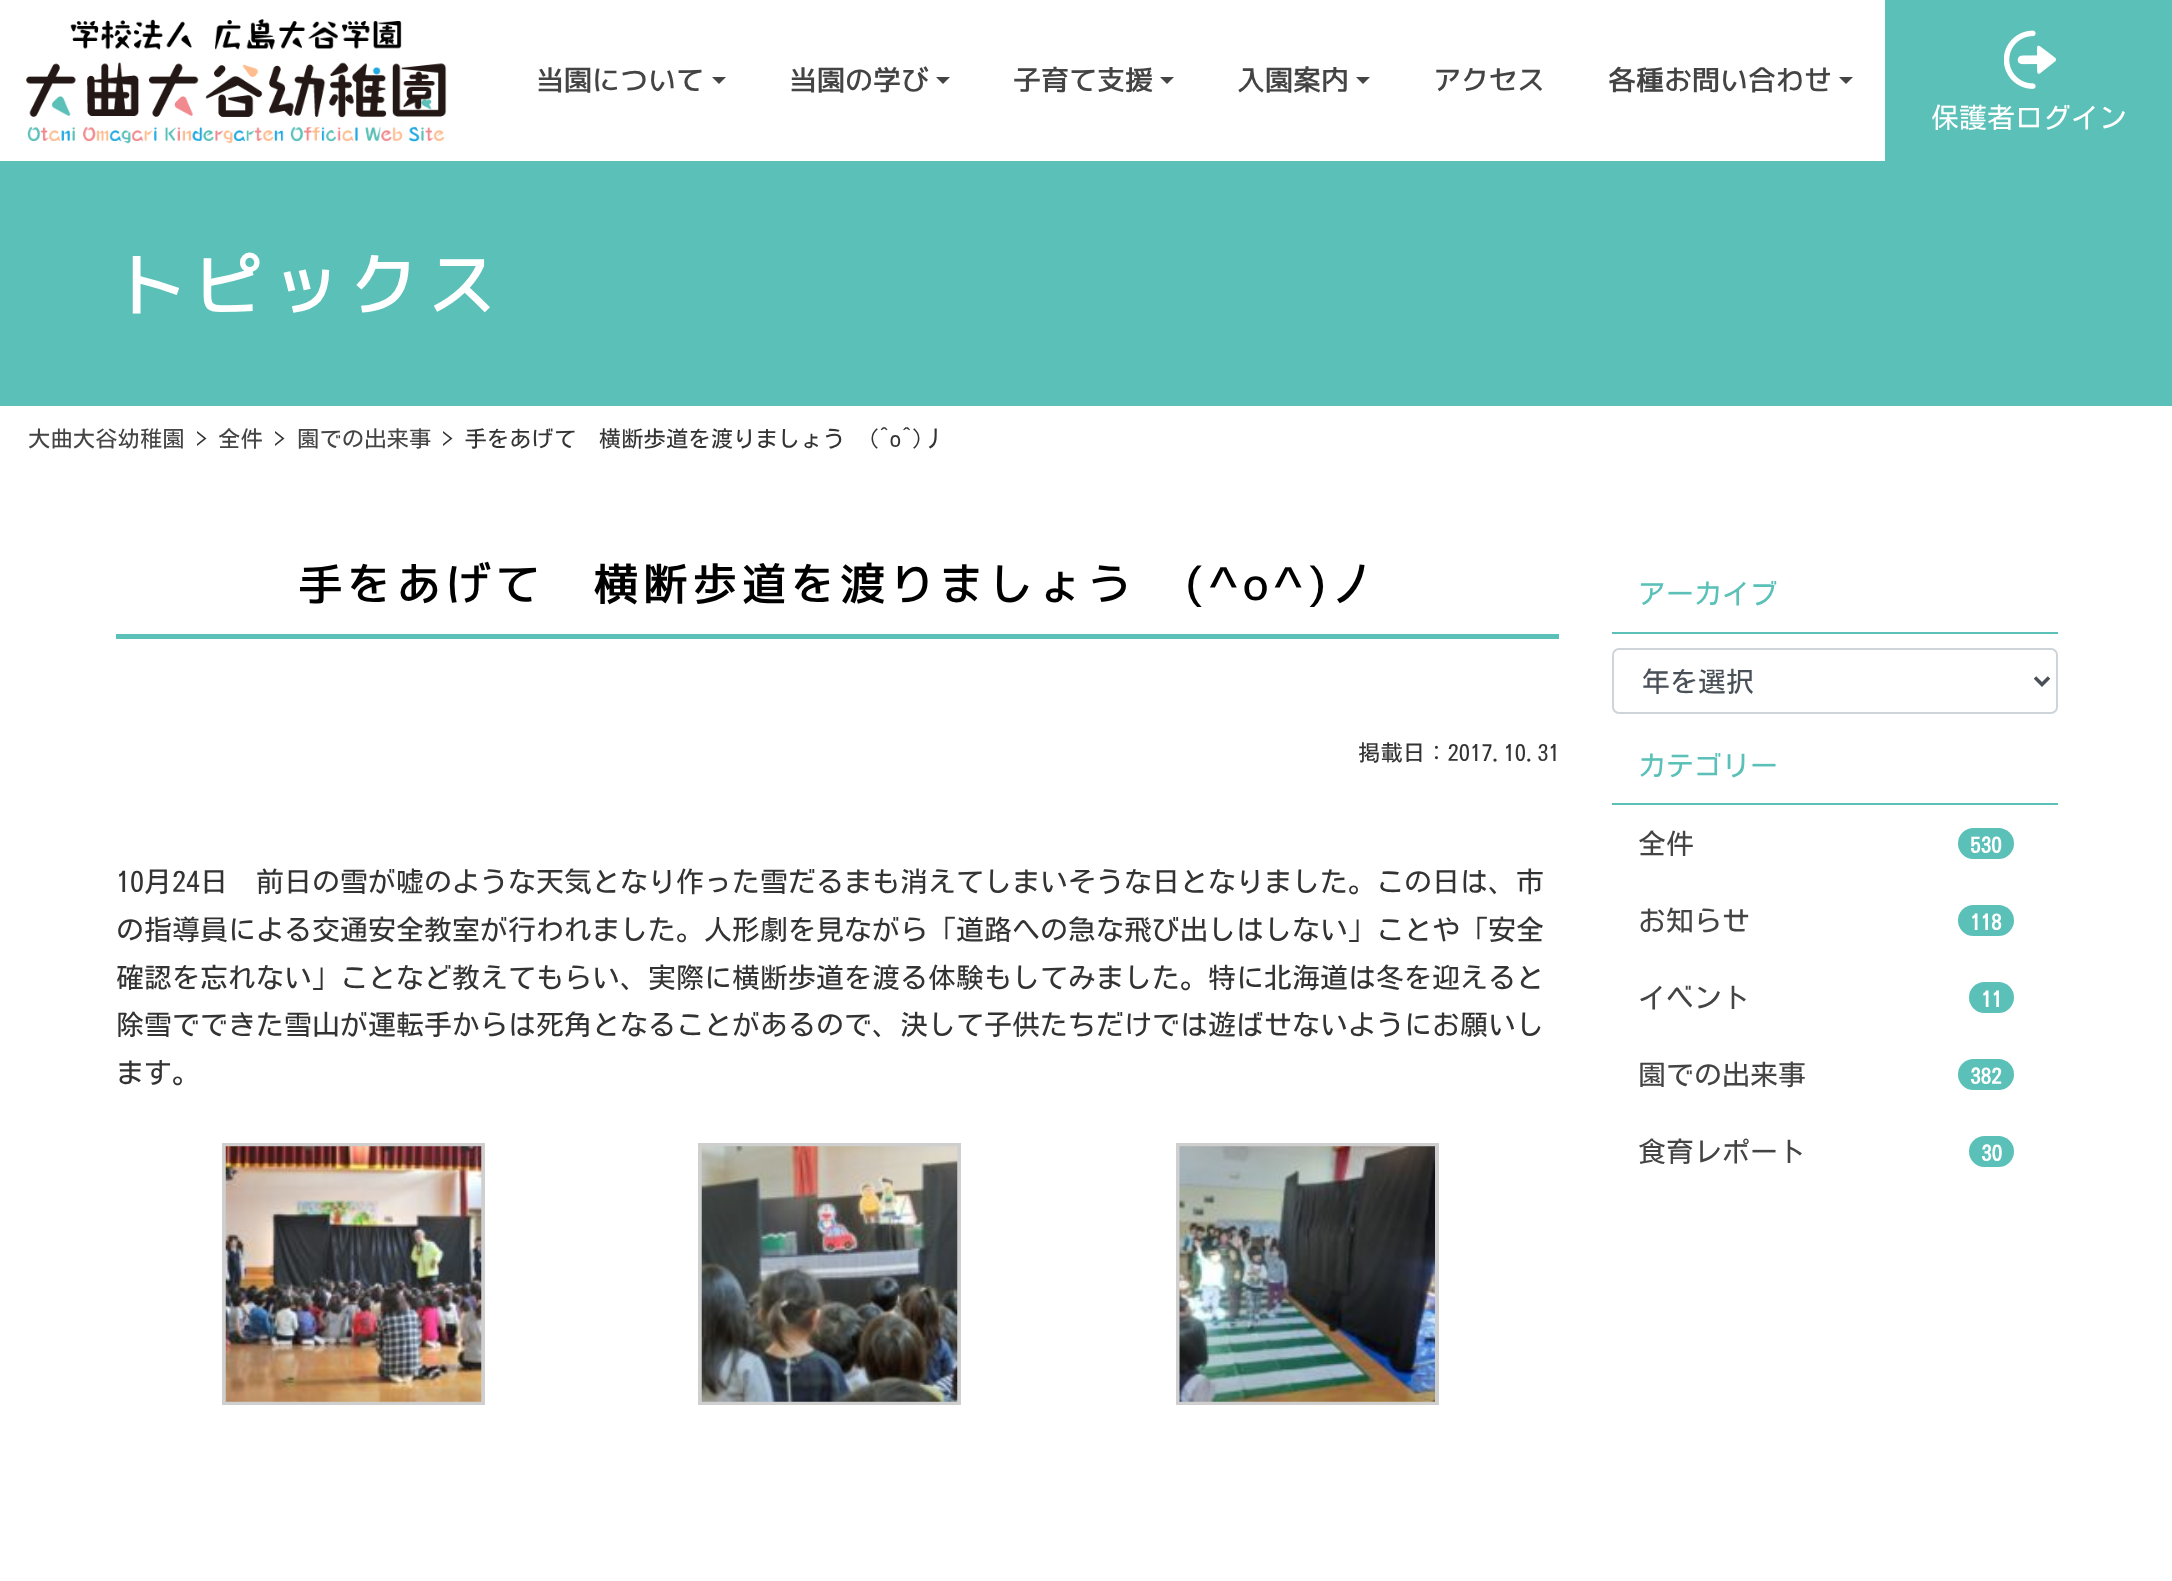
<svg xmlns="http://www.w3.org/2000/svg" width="2172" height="1581">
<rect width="100%" height="100%" fill="#fff"/>
<image x="26" y="19" width="421" height="125" href="media/1.png"/>
<text x="536" y="90" style="font-family:'M PLUS 1p';font-size:28px;font-weight:500;fill:#444">当園について</text>
<path d="M712 77h14l-7 7z" fill="#444"/>
<text x="789" y="90" style="font-family:'M PLUS 1p';font-size:28px;font-weight:500;fill:#444">当園の学び</text>
<path d="M936 77h14l-7 7z" fill="#444"/>
<text x="1013" y="90" style="font-family:'M PLUS 1p';font-size:28px;font-weight:500;fill:#444">子育て支援</text>
<path d="M1160 77h14l-7 7z" fill="#444"/>
<text x="1237" y="90" style="font-family:'M PLUS 1p';font-size:28px;font-weight:500;fill:#444">入園案内</text>
<path d="M1356 77h14l-7 7z" fill="#444"/>
<text x="1433" y="90" style="font-family:'M PLUS 1p';font-size:28px;font-weight:500;fill:#444">アクセス</text>
<text x="1608" y="90" style="font-family:'M PLUS 1p';font-size:28px;font-weight:500;fill:#444">各種お問い合わせ</text>
<path d="M1839 77h14l-7 7z" fill="#444"/>
<rect x="1885" width="287" height="161" fill="#5ac0b8"/>
<image x="2004" y="30" width="52" height="59" href="media/2.png"/>
<text x="1931" y="128" style="font-family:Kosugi;font-size:28px;fill:#fff">保護者ログイン</text>
<rect y="161" width="2172" height="245" fill="#5ac0b8"/>
<text x="116" y="310" style="font-family:'M PLUS 1p';font-size:70px;font-weight:500;letter-spacing:7.75px;fill:#fff">トピックス</text>
<text x="28" y="447" style="font-family:Kosugi;font-size:22.4px;fill:#444">大曲大谷幼稚園</text>
<text x="196" y="447" style="font-family:Kosugi;font-size:22.4px;fill:#333">&gt;</text>
<text x="218" y="447" style="font-family:Kosugi;font-size:22.4px;fill:#444">全件</text>
<text x="274" y="447" style="font-family:Kosugi;font-size:22.4px;fill:#333">&gt;</text>
<text x="297" y="447" style="font-family:Kosugi;font-size:22.4px;fill:#444">園での出来事</text>
<text x="442" y="447" style="font-family:Kosugi;font-size:22.4px;fill:#333">&gt; 手をあげて　横断歩道を渡りましょう　(^o^)丿</text>
<rect x="116" y="634" width="1443" height="5" fill="#5ac0b8"/>
<text x="298" y="600" style="font-family:'M PLUS 1p';font-size:44.8px;font-weight:500;letter-spacing:4.5px;fill:#000">手をあげて　横断歩道を渡りましょう　(^o^)丿</text>
<text x="1358" y="761" style="font-family:Kosugi;font-size:22.4px;fill:#333">掲載日：2017.10.31</text>
<text x="116" y="892" style="font-family:Kosugi;font-size:28px;fill:#333">10月24日　前日の雪が嘘のような天気となり作った雪だるまも消えてしまいそうな日となりました。この日は、市</text>
<text x="116" y="940" style="font-family:Kosugi;font-size:28px;fill:#333">の指導員による交通安全教室が行われました。人形劇を見ながら「道路への急な飛び出しはしない」ことや「安全</text>
<text x="116" y="988" style="font-family:Kosugi;font-size:28px;fill:#333">確認を忘れない」ことなど教えてもらい、実際に横断歩道を渡る体験もしてみました。特に北海道は冬を迎えると</text>
<text x="116" y="1035" style="font-family:Kosugi;font-size:28px;fill:#333">除雪でできた雪山が運転手からは死角となることがあるので、決して子供たちだけでは遊ばせないようにお願いし</text>
<text x="116" y="1083" style="font-family:Kosugi;font-size:28px;fill:#333">ます。</text>
<rect x="224" y="1145" width="259" height="258" fill="none" stroke="#cfcfcf" stroke-width="4"/>
<image x="225" y="1146" width="257" height="256" href="media/3.png"/>
<rect x="700" y="1145" width="259" height="258" fill="none" stroke="#cfcfcf" stroke-width="4"/>
<image x="701" y="1146" width="257" height="256" href="media/4.png"/>
<rect x="1178" y="1145" width="259" height="258" fill="none" stroke="#cfcfcf" stroke-width="4"/>
<image x="1179" y="1146" width="256" height="256" href="media/5.png"/>
<rect x="1612" y="632" width="446" height="2" fill="#5ac0b8"/>
<text x="1638" y="604" style="font-family:Kosugi;font-size:28px;fill:#5ac0b8">アーカイブ</text>
<rect x="1613" y="649" width="444" height="64" rx="6" fill="none" stroke="#ced4da" stroke-width="2"/>
<path d="M2035 677.5l7 7l7-7" fill="none" stroke="#495057" stroke-width="3.5"/>
<text x="1642" y="692" style="font-family:Kosugi;font-size:28px;fill:#495057">年を選択</text>
<rect x="1612" y="803" width="446" height="2" fill="#5ac0b8"/>
<text x="1638" y="776" style="font-family:Kosugi;font-size:28px;fill:#5ac0b8">カテゴリー</text>
<text x="1638" y="854" style="font-family:Kosugi;font-size:28px;fill:#444">全件</text>
<rect x="1958" y="828" width="56" height="31" rx="15.5" fill="#5ac0b8"/>
<text x="1970" y="853" style="font-family:Kosugi;font-size:21px;font-weight:bold;fill:#fff">530</text>
<text x="1638" y="931" style="font-family:Kosugi;font-size:28px;fill:#444">お知らせ</text>
<rect x="1958" y="905" width="56" height="31" rx="15.5" fill="#5ac0b8"/>
<text x="1970" y="930" style="font-family:Kosugi;font-size:21px;font-weight:bold;fill:#fff">118</text>
<text x="1638" y="1008" style="font-family:Kosugi;font-size:28px;fill:#444">イベント</text>
<rect x="1969" y="982" width="45" height="31" rx="15.5" fill="#5ac0b8"/>
<text x="1981" y="1007" style="font-family:Kosugi;font-size:21px;font-weight:bold;fill:#fff">11</text>
<text x="1638" y="1085" style="font-family:Kosugi;font-size:28px;fill:#444">園での出来事</text>
<rect x="1958" y="1059" width="56" height="31" rx="15.5" fill="#5ac0b8"/>
<text x="1970" y="1084" style="font-family:Kosugi;font-size:21px;font-weight:bold;fill:#fff">382</text>
<text x="1638" y="1162" style="font-family:Kosugi;font-size:28px;fill:#444">食育レポート</text>
<rect x="1969" y="1136" width="45" height="31" rx="15.5" fill="#5ac0b8"/>
<text x="1981" y="1161" style="font-family:Kosugi;font-size:21px;font-weight:bold;fill:#fff">30</text>
</svg>
